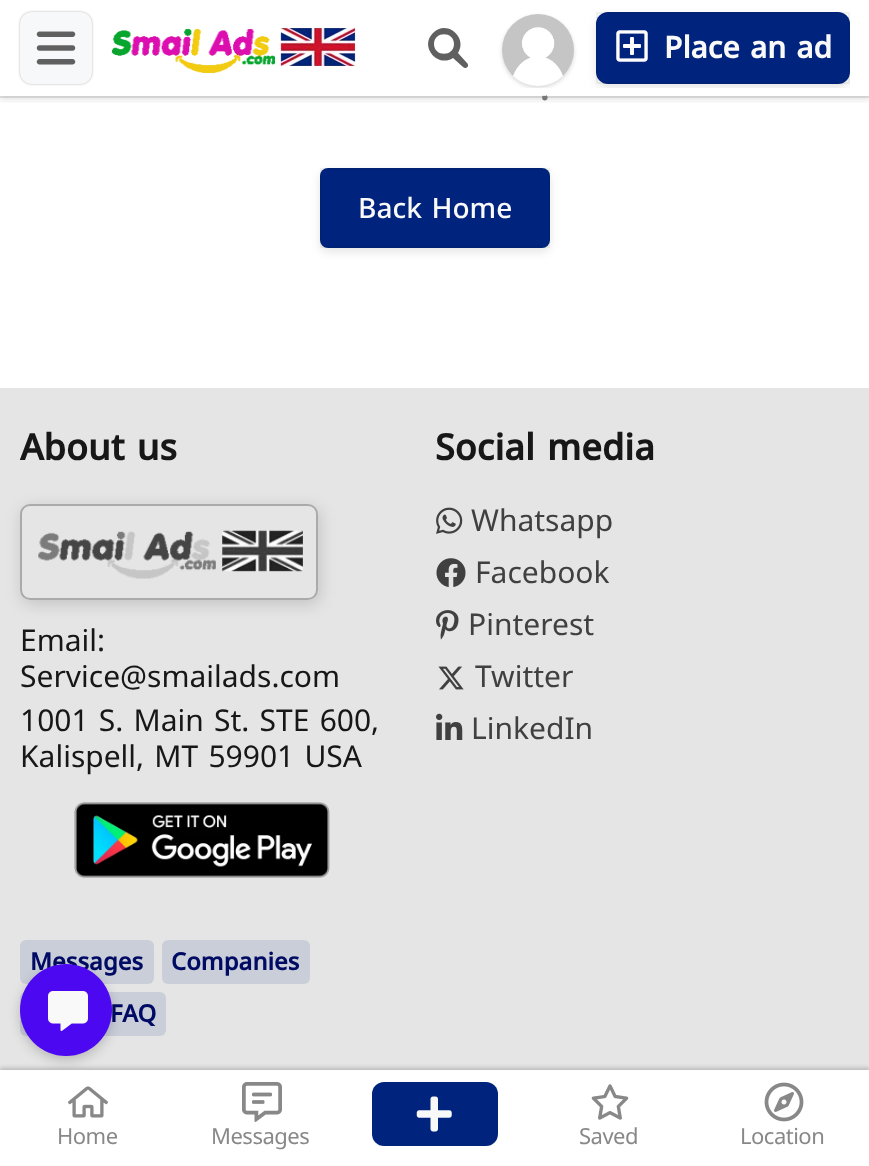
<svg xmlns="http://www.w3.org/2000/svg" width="869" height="1166">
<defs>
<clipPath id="clip1"><rect x="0" y="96" width="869" height="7"/></clipPath>
<clipPath id="clip2"><rect x="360" y="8" width="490" height="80"/></clipPath>
<clipPath id="clip3"><path d="M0 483h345v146h-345zm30 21h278c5.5 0 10 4.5 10 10v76c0 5.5-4.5 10-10 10h-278c-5.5 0-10-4.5-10-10v-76c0-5.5 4.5-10 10-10z" clip-rule="evenodd"/></clipPath>
</defs>
<rect width="100%" height="100%" fill="#fff"/>
<rect y="96" width="869" height="2" fill="#0000001a"/>
<g clip-path="url(#clip1)">
<rect y="4" width="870" height="96" fill="#0000001a" filter="blur(3px)"/>
</g>
<text x="540" y="100" style="font-family:Noto Kufi Arabic;font-size:32px;font-weight:bold;fill:#777">.</text>
<rect x="543" y="95" width="3" height="1" fill="#ffffffcc"/>
<rect x="20" y="12" width="72" height="72" rx="12" fill="#0000004d" filter="blur(1px)"/>
<rect x="20" y="12" width="72" height="72" rx="12" fill="#f7f8f9"/>
<image x="36" y="31" width="40" height="34" href="media/1.png"/>
<image x="111" y="28" width="245" height="45" href="media/2.png"/>
<path d="M467 63l-9-10c10-15-11-34-25-20c-14 14 5 35 20 25l10 9c3 3 7-1 4-4zm-33-19c0-13 20-13 20 0c0 13-20 13-20 0z" fill="#606060"/>
<g clip-path="url(#clip2)">
<rect x="502" y="16" width="72" height="72" rx="36" fill="#00000026" filter="blur(2px)"/>
</g>
<image x="502" y="14" width="72" height="72" href="media/3.png"/>
<g clip-path="url(#clip2)">
<rect x="596" y="16" width="254" height="72" rx="12" fill="#0000001a" filter="blur(5px)"/>
</g>
<rect x="596" y="12" width="254" height="72" rx="12" fill="#00247d"/>
<rect x="597" y="13" width="252" height="70" fill="none" stroke="#0000000d" stroke-width="2"/>
<image x="616" y="30" width="32" height="32" href="media/4.png"/>
<text x="664" y="58" style="font-family:Noto Kufi Arabic;font-size:30px;font-weight:bold;fill:#f9f9f9">Place an ad</text>
<rect x="320" y="172" width="230" height="80" rx="8" fill="#0000001a" filter="blur(5px)"/>
<rect x="320" y="168" width="230" height="80" rx="8" fill="#00247d"/>
<rect x="321" y="169" width="228" height="78" fill="none" stroke="#0000000d" stroke-width="2"/>
<text x="358" y="218" style="font-family:Noto Kufi Arabic;font-size:28px;font-weight:500;fill:#f9f9f9">Back Home</text>
<rect y="388" width="869" height="682" fill="#e5e5e5"/>
<text x="20" y="460" style="font-family:Noto Kufi Arabic;font-size:36px;font-weight:bold;fill:#171717">About us</text>
<g clip-path="url(#clip3)">
<rect x="22" y="508" width="298" height="96" rx="10" fill="#00000026" filter="blur(8px)"/>
</g>
<rect x="21" y="505" width="296" height="94" rx="9" fill="none" stroke="#aaa" stroke-width="2"/>
<image x="38" y="530" width="265" height="49" href="media/5.png"/>
<text x="20" y="651" style="font-family:Noto Kufi Arabic;font-size:30px;fill:#171717">Email:</text>
<text x="20" y="687" style="font-family:Noto Kufi Arabic;font-size:30px;fill:#171717">Service@smailads.com</text>
<text x="20" y="731" style="font-family:Noto Kufi Arabic;font-size:30px;fill:#171717">1001 S. Main St. STE 600,</text>
<text x="20" y="767" style="font-family:Noto Kufi Arabic;font-size:30px;fill:#171717">Kalispell, MT 59901 USA</text>
<image x="74" y="802" width="256" height="76" href="media/6.png"/>
<rect x="20" y="940" width="134" height="44" rx="6" fill="#caced9"/>
<text x="30" y="970" style="font-family:Noto Kufi Arabic;font-size:24px;font-weight:bold;fill:#000b64">Messages</text>
<rect x="162" y="940" width="148" height="44" rx="6" fill="#caced9"/>
<text x="171" y="970" style="font-family:Noto Kufi Arabic;font-size:24px;font-weight:bold;fill:#000b64">Companies</text>
<rect x="20" y="992" width="72" height="44" rx="6" fill="#caced9"/>
<rect x="100" y="992" width="66" height="44" rx="6" fill="#caced9"/>
<text x="110" y="1022" style="font-family:Noto Kufi Arabic;font-size:24px;font-weight:bold;fill:#000b64">FAQ</text>
<text x="435" y="460" style="font-family:Noto Kufi Arabic;font-size:36px;font-weight:bold;fill:#171717">Social media</text>
<image x="436" y="507" width="27" height="27" href="media/7.png"/>
<text x="471" y="531" style="font-family:Noto Kufi Arabic;font-size:30px;fill:#404040">Whatsapp</text>
<image x="436" y="558" width="30" height="29" href="media/8.png"/>
<text x="475" y="583" style="font-family:Noto Kufi Arabic;font-size:30px;fill:#404040">Facebook</text>
<image x="436" y="610" width="23" height="30" href="media/9.png"/>
<text x="468" y="635" style="font-family:Noto Kufi Arabic;font-size:30px;fill:#404040">Pinterest</text>
<image x="438" y="666" width="26" height="24" href="media/10.png"/>
<text x="475" y="687" style="font-family:Noto Kufi Arabic;font-size:30px;fill:#404040">Twitter</text>
<image x="436" y="713" width="27" height="27" href="media/11.png"/>
<text x="471" y="739" style="font-family:Noto Kufi Arabic;font-size:30px;fill:#404040">LinkedIn</text>
<rect x="20" y="968" width="92" height="92" rx="46" fill="#00000033" filter="blur(6px)"/>
<circle cx="66" cy="1010" r="46" fill="#4d08f2"/>
<image x="48" y="991" width="40" height="40" href="media/12.png"/>
<rect y="1068" width="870" height="96" fill="#00000033" filter="blur(2px)"/>
<rect y="1070" width="869" height="96" fill="#fff"/>
<image x="68" y="1086" width="40" height="32" href="media/13.png"/>
<text x="57" y="1144" style="font-family:Noto Kufi Arabic;font-size:22px;letter-spacing:-0.5px;fill:#888">Home</text>
<image x="242" y="1082" width="40" height="40" href="media/14.png"/>
<text x="211" y="1144" style="font-family:Noto Kufi Arabic;font-size:22px;letter-spacing:-0.5px;fill:#888">Messages</text>
<rect x="372" y="1082" width="126" height="64" rx="12" fill="#00247d"/>
<image x="416" y="1096" width="36" height="36" href="media/15.png"/>
<image x="591" y="1084" width="38" height="36" href="media/16.png"/>
<text x="579" y="1144" style="font-family:Noto Kufi Arabic;font-size:22px;letter-spacing:-0.5px;fill:#888">Saved</text>
<image x="764" y="1082" width="40" height="40" href="media/17.png"/>
<text x="740" y="1144" style="font-family:Noto Kufi Arabic;font-size:22px;letter-spacing:-0.5px;fill:#888">Location</text>
</svg>
